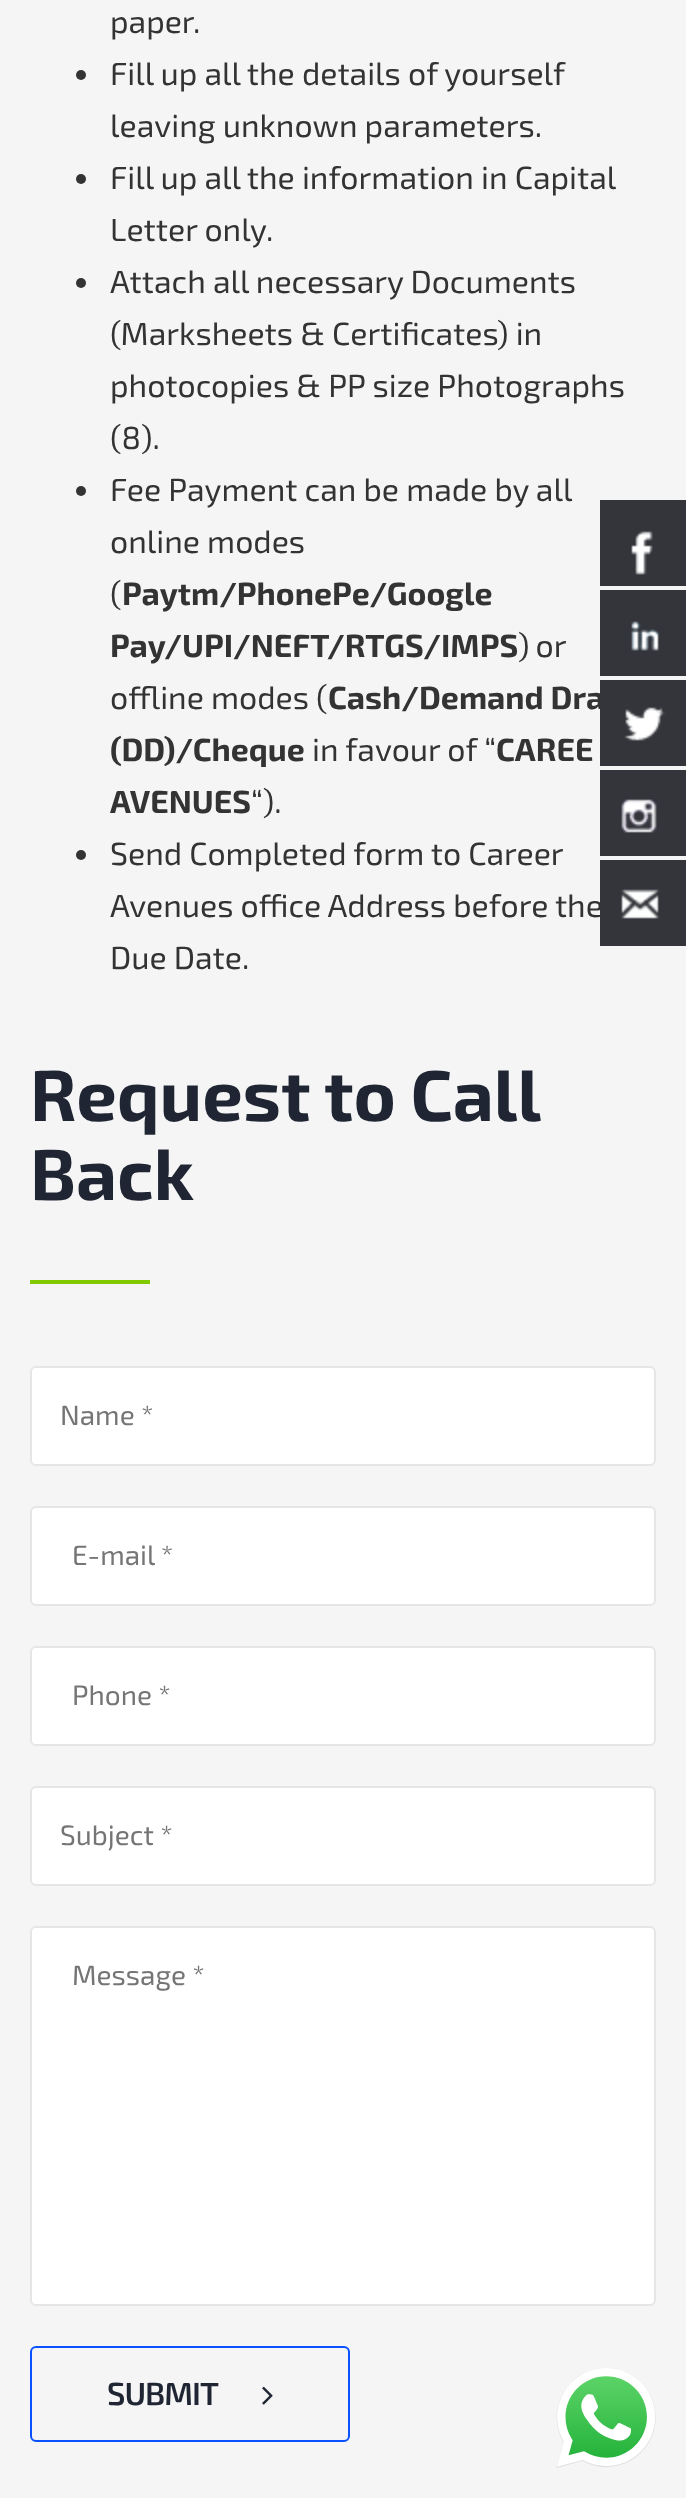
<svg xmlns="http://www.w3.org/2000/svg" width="686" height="2498">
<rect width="100%" height="100%" fill="#f5f5f5"/>
<text x="110" y="33" style="font-family:'Exo 2';font-size:32px;fill:#333">paper.</text>
<circle cx="81" cy="75" r="5" fill="#333"/>
<text x="110" y="85" style="font-family:'Exo 2';font-size:32px;fill:#333">Fill up all the details of yourself</text>
<text x="110" y="137" style="font-family:'Exo 2';font-size:32px;fill:#333">leaving unknown parameters.</text>
<circle cx="81" cy="179" r="5" fill="#333"/>
<text x="110" y="189" style="font-family:'Exo 2';font-size:32px;fill:#333">Fill up all the information in Capital</text>
<text x="110" y="241" style="font-family:'Exo 2';font-size:32px;fill:#333">Letter only.</text>
<circle cx="81" cy="283" r="5" fill="#333"/>
<text x="110" y="293" style="font-family:'Exo 2';font-size:32px;fill:#333">Attach all necessary Documents</text>
<text x="110" y="345" style="font-family:'Exo 2';font-size:32px;fill:#333">(Marksheets &amp; Certificates) in</text>
<text x="110" y="397" style="font-family:'Exo 2';font-size:32px;fill:#333">photocopies &amp; PP size Photographs</text>
<text x="110" y="449" style="font-family:'Exo 2';font-size:32px;fill:#333">(8).</text>
<circle cx="81" cy="491" r="5" fill="#333"/>
<text x="110" y="501" style="font-family:'Exo 2';font-size:32px;fill:#333">Fee Payment can be made by all</text>
<text x="110" y="553" style="font-family:'Exo 2';font-size:32px;fill:#333">online modes</text>
<text x="110" y="605" style="font-family:'Exo 2';font-size:32px;fill:#333">(</text>
<text x="122" y="605" style="font-family:'Exo 2';font-size:32px;font-weight:bold;fill:#333">Paytm/PhonePe/Google</text>
<text x="110" y="657" style="font-family:'Exo 2';font-size:32px;font-weight:bold;fill:#333">Pay/UPI/NEFT/RTGS/IMPS</text>
<text x="518" y="657" word-spacing="-1" style="font-family:'Exo 2';font-size:32px;fill:#333">) or</text>
<text x="110" y="709" style="font-family:'Exo 2';font-size:32px;fill:#333">offline modes (</text>
<text x="328" y="709" style="font-family:'Exo 2';font-size:32px;font-weight:bold;fill:#333">Cash/Demand Dra</text>
<text x="110" y="761" style="font-family:'Exo 2';font-size:32px;font-weight:bold;fill:#333">(DD)/Cheque</text>
<text x="312" y="761" style="font-family:'Exo 2';font-size:32px;fill:#333">in favour of “</text>
<text x="496" y="761" style="font-family:'Exo 2';font-size:32px;font-weight:bold;fill:#333">CAREE</text>
<text x="110" y="813" style="font-family:'Exo 2';font-size:32px;font-weight:bold;fill:#333">AVENUES</text>
<text x="251" y="813" style="font-family:'Exo 2';font-size:32px;fill:#333">“).</text>
<circle cx="81" cy="855" r="5" fill="#333"/>
<text x="110" y="865" style="font-family:'Exo 2';font-size:32px;fill:#333">Send Completed form to Career</text>
<text x="110" y="917" style="font-family:'Exo 2';font-size:32px;fill:#333">Avenues office Address before the</text>
<text x="110" y="969" style="font-family:'Exo 2';font-size:32px;fill:#333">Due Date.</text>
<text x="30" y="1121" word-spacing="-1" style="font-family:'Exo 2';font-size:72px;font-weight:bold;fill:#1f2533">Request to Call</text>
<text x="30" y="1200" style="font-family:'Exo 2';font-size:72px;font-weight:bold;fill:#1f2533">Back</text>
<rect x="30" y="1280" width="120" height="4" fill="#81ca00"/>
<rect x="31" y="1367" width="624" height="98" rx="5" fill="#fff" stroke="#e6e6e6" stroke-width="2"/>
<text x="60" y="1425" style="font-family:'Exo 2';font-size:28px;fill:#757575">Name *</text>
<rect x="31" y="1507" width="624" height="98" rx="5" fill="#fff" stroke="#e6e6e6" stroke-width="2"/>
<text x="72" y="1565" style="font-family:'Exo 2';font-size:28px;fill:#757575">E-mail *</text>
<rect x="31" y="1647" width="624" height="98" rx="5" fill="#fff" stroke="#e6e6e6" stroke-width="2"/>
<text x="72" y="1705" style="font-family:'Exo 2';font-size:28px;fill:#757575">Phone *</text>
<rect x="31" y="1787" width="624" height="98" rx="5" fill="#fff" stroke="#e6e6e6" stroke-width="2"/>
<text x="60" y="1845" style="font-family:'Exo 2';font-size:28px;fill:#757575">Subject *</text>
<rect x="31" y="1927" width="624" height="378" rx="5" fill="#fff" stroke="#e6e6e6" stroke-width="2"/>
<text x="72" y="1985" style="font-family:'Exo 2';font-size:28px;fill:#757575">Message *</text>
<rect x="31" y="2347" width="318" height="94" rx="5" fill="none" stroke="#0c51ff" stroke-width="2"/>
<text x="107" y="2405" style="font-family:'Exo 2';font-size:32px;font-weight:600;letter-spacing:-1px;fill:#1f2533">SUBMIT</text>
<image x="262" y="2386" width="11" height="19" href="media/1.png"/>
<rect x="600" y="500" width="86" height="86" fill="#33353b"/>
<image x="631" y="531" width="22" height="44" href="media/2.png"/>
<rect x="600" y="590" width="86" height="86" fill="#33353b"/>
<image x="631" y="621" width="28" height="30" href="media/3.png"/>
<rect x="600" y="680" width="86" height="86" fill="#33353b"/>
<image x="624" y="707" width="41" height="34" href="media/4.png"/>
<rect x="600" y="770" width="86" height="86" fill="#33353b"/>
<image x="621" y="799" width="36" height="34" href="media/5.png"/>
<rect x="600" y="860" width="86" height="86" fill="#33353b"/>
<image x="621" y="889" width="38" height="30" href="media/6.png"/>
<image x="556" y="2368" width="100" height="100" href="media/7.png"/>
</svg>
